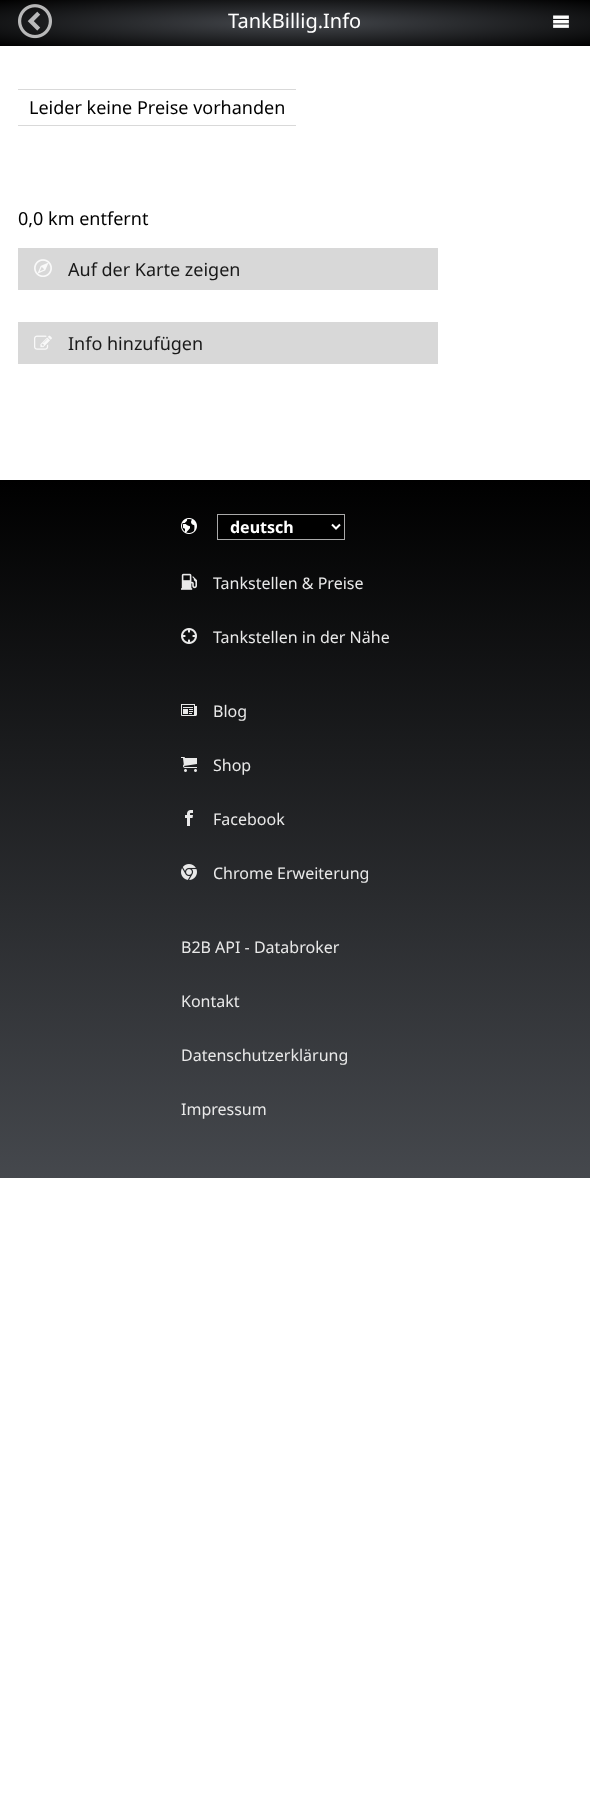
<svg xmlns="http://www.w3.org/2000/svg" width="590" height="1810">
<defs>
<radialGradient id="g1" gradientUnits="userSpaceOnUse" cx="0" cy="0" r="1" gradientTransform="matrix(417 0 0 33 295 23)"><stop offset="0" stop-color="#45484d"/><stop offset="1" stop-color="#000"/></radialGradient>
<linearGradient id="g2" gradientUnits="userSpaceOnUse" x1="295" y1="1178" x2="295" y2="480"><stop offset="0" stop-color="#45484d"/><stop offset="1" stop-color="#000"/></linearGradient>
</defs>
<rect width="100%" height="100%" fill="#fff"/>
<rect width="590" height="46" fill="url(#g1)"/>
<image x="18" y="4" width="34" height="35" href="media/1.png"/>
<text x="228" y="28" style="font-family:Noto Sans;font-size:20px;fill:#fff">TankBillig.Info</text>
<image x="553" y="15" width="16" height="13" href="media/2.png"/>
<rect x="18" y="89" width="278" height="1" fill="#d9d9d9"/>
<rect x="18" y="125" width="278" height="1" fill="#d9d9d9"/>
<text x="29" y="114" style="font-family:Noto Sans;font-size:18px;fill:#000">Leider keine Preise vorhanden</text>
<text x="18" y="225" style="font-family:Noto Sans;font-size:18px;fill:#000">0,0 km entfernt</text>
<rect x="18" y="248" width="420" height="42" fill="#d8d8d8"/>
<image x="34" y="259" width="18" height="18" href="media/3.png"/>
<text x="68" y="276" style="font-family:Noto Sans;font-size:18px;fill:#191919">Auf der Karte zeigen</text>
<rect x="18" y="322" width="420" height="42" fill="#d8d8d8"/>
<image x="34" y="335" width="18" height="15" href="media/4.png"/>
<text x="68" y="350" style="font-family:Noto Sans;font-size:18px;fill:#191919">Info hinzufügen</text>
<rect y="480" width="590" height="698" fill="url(#g2)"/>
<image x="181" y="518" width="16" height="16" href="media/5.png"/>
<rect x="217.5" y="514.5" width="127" height="25" fill="#000" stroke="#a9a9a9"/>
<path d="M332 524.5l4 4l4-4" fill="none" stroke="#fff" stroke-width="2"/>
<text x="230" y="533" style="font-family:Noto Sans;font-size:16px;font-weight:bold;fill:#fff">deutsch</text>
<image x="181" y="573" width="16" height="17" href="media/6.png"/>
<text x="213" y="589" style="font-family:Noto Sans;font-size:16px;fill:#e9e9e9">Tankstellen &amp; Preise</text>
<image x="181" y="628" width="16" height="16" href="media/7.png"/>
<text x="213" y="643" style="font-family:Noto Sans;font-size:16px;fill:#e9e9e9">Tankstellen in der Nähe</text>
<image x="181" y="704" width="16" height="12" href="media/8.png"/>
<text x="213" y="717" style="font-family:Noto Sans;font-size:16px;fill:#e9e9e9">Blog</text>
<image x="181" y="757" width="16" height="15" href="media/9.png"/>
<text x="213" y="771" style="font-family:Noto Sans;font-size:16px;fill:#e9e9e9">Shop</text>
<image x="185" y="810" width="8" height="16" href="media/10.png"/>
<text x="213" y="825" style="font-family:Noto Sans;font-size:16px;fill:#e9e9e9">Facebook</text>
<image x="181" y="864" width="16" height="16" href="media/11.png"/>
<text x="213" y="879" style="font-family:Noto Sans;font-size:16px;fill:#e9e9e9">Chrome Erweiterung</text>
<text x="181" y="953" style="font-family:Noto Sans;font-size:16px;fill:#e9e9e9">B2B API - Databroker</text>
<text x="181" y="1007" style="font-family:Noto Sans;font-size:16px;fill:#e9e9e9">Kontakt</text>
<text x="181" y="1061" style="font-family:Noto Sans;font-size:16px;fill:#e9e9e9">Datenschutzerklärung</text>
<text x="181" y="1115" style="font-family:Noto Sans;font-size:16px;fill:#e9e9e9">Impressum</text>
</svg>
